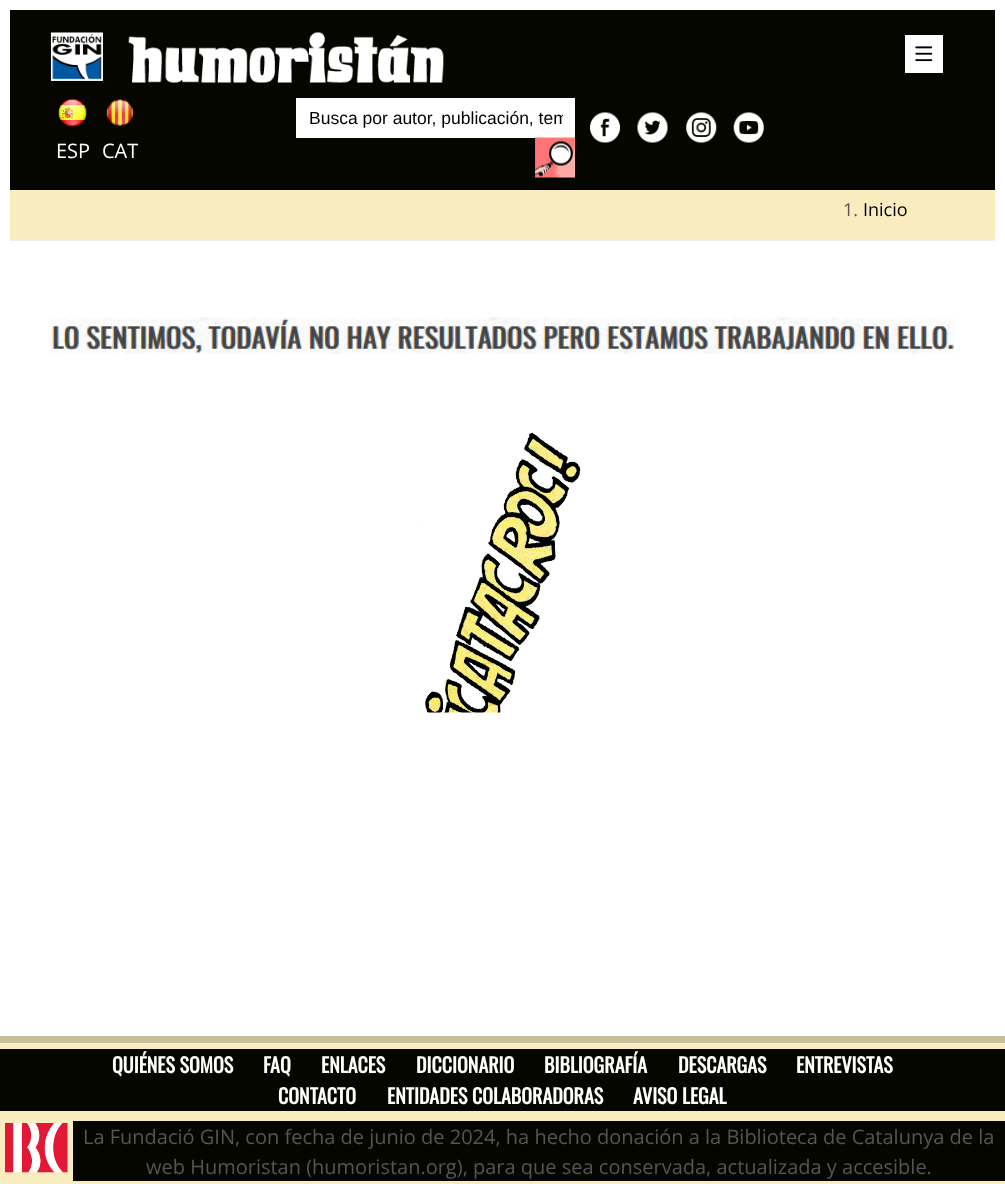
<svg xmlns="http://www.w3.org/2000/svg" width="1005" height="1184">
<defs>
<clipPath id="clip1"><rect x="309" y="108" width="254" height="20"/></clipPath>
</defs>
<rect width="100%" height="100%" fill="#fff"/>
<rect x="10" y="10" width="985" height="180" fill="#060600"/>
<image x="50" y="32" width="53" height="50" href="media/1.png"/>
<image x="128" y="32" width="316" height="51" href="media/2.png"/>
<rect x="905" y="35" width="38" height="38" fill="#fff"/>
<image x="915" y="46" width="18" height="16" href="media/3.png"/>
<rect x="296" y="98" width="279" height="40" fill="#fff"/>
<g clip-path="url(#clip1)">
<text x="309" y="124" style="font-family:Liberation Sans;font-size:17.5px;fill:#000">Busca por autor, publicación, tem</text>
</g>
<image x="535" y="137" width="40" height="41" href="media/4.png"/>
<image x="590" y="112" width="30" height="31" href="media/5.png"/>
<image x="637" y="112" width="31" height="31" href="media/6.png"/>
<image x="686" y="112" width="31" height="31" href="media/7.png"/>
<image x="733" y="112" width="31" height="31" href="media/8.png"/>
<image x="58" y="98" width="29" height="29" href="media/9.png"/>
<text x="56" y="158" style="font-family:Open Sans;font-size:20px;fill:#fff">ESP</text>
<image x="106" y="99" width="28" height="27" href="media/10.png"/>
<text x="102" y="158" style="font-family:Open Sans;font-size:20px;fill:#fff">CAT</text>
<rect x="10" y="190" width="985" height="50" fill="#f9ecbf"/>
<rect x="10" y="240" width="985" height="1" fill="#eee"/>
<text x="843" y="216" style="font-family:Open Sans;font-size:18px;fill:#555">1.</text>
<text x="863" y="216" style="font-family:Open Sans;font-size:18px;fill:#000">Inicio</text>
<image x="51" y="317" width="903" height="37" href="media/11.png"/>
<image x="419" y="432" width="162" height="281" href="media/12.png"/>
<rect y="1043" width="1005" height="141" fill="#f9ecbf"/>
<rect y="1036" width="1005" height="7" fill="#c7bd99"/>
<rect y="1049" width="1005" height="62" fill="#060600"/>
<text x="112" y="1073" style="font-family:Oswald;font-size:20px;font-weight:bold;fill:#fff">QUIÉNES SOMOS</text>
<text x="263" y="1073" style="font-family:Oswald;font-size:20px;font-weight:bold;fill:#fff">FAQ</text>
<text x="321" y="1073" style="font-family:Oswald;font-size:20px;font-weight:bold;fill:#fff">ENLACES</text>
<text x="416" y="1073" style="font-family:Oswald;font-size:20px;font-weight:bold;fill:#fff">DICCIONARIO</text>
<text x="544" y="1073" style="font-family:Oswald;font-size:20px;font-weight:bold;fill:#fff">BIBLIOGRAFÍA</text>
<text x="678" y="1073" style="font-family:Oswald;font-size:20px;font-weight:bold;fill:#fff">DESCARGAS</text>
<text x="796" y="1073" style="font-family:Oswald;font-size:20px;font-weight:bold;fill:#fff">ENTREVISTAS</text>
<text x="278" y="1104" style="font-family:Oswald;font-size:20px;font-weight:bold;fill:#fff">CONTACTO</text>
<text x="387" y="1104" style="font-family:Oswald;font-size:20px;font-weight:bold;fill:#fff">ENTIDADES COLABORADORAS</text>
<text x="633" y="1104" style="font-family:Oswald;font-size:20px;font-weight:bold;fill:#fff">AVISO LEGAL</text>
<image x="5" y="1123" width="63" height="50" href="media/13.png"/>
<rect x="73" y="1121" width="932" height="60" fill="#060600"/>
<text x="83" y="1144" style="font-family:Open Sans;font-size:20px;fill:#555">La Fundació GIN, con fecha de junio de 2024, ha hecho donación a la Biblioteca de Catalunya de la</text>
<text x="146" y="1174" style="font-family:Open Sans;font-size:20px;fill:#555">web Humoristan (humoristan.org), para que sea conservada, actualizada y accesible.</text>
</svg>
